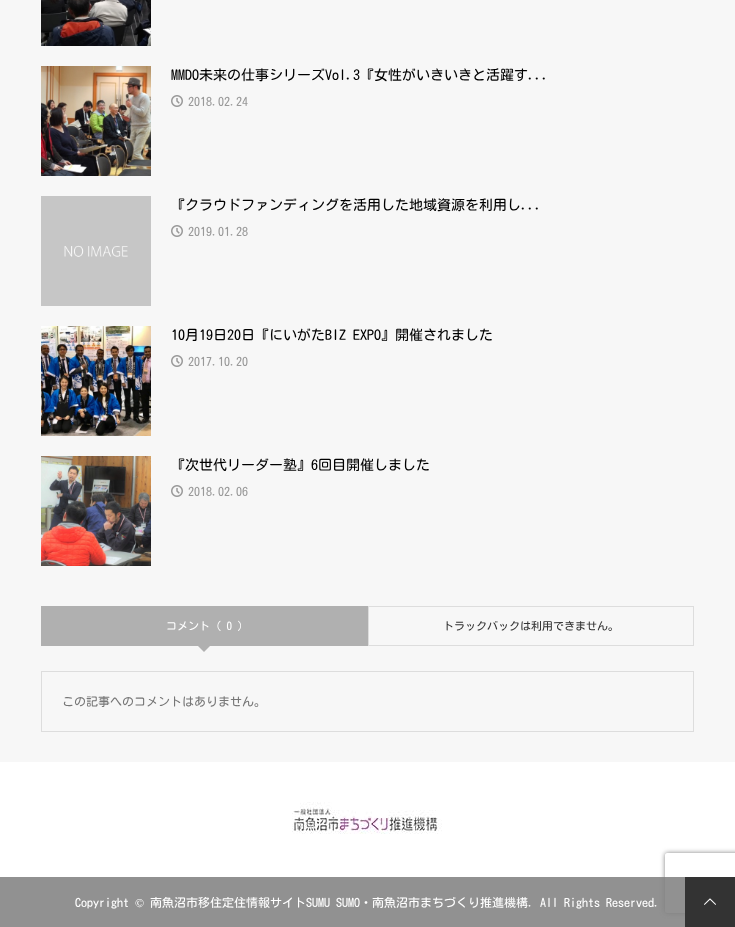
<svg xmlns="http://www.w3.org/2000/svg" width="735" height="927">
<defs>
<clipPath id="clip1"><path d="M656 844h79v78h-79zm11 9h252c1 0 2 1 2 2v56c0 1-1 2-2 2h-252c-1 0-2-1-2-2v-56c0-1 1-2 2-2z" clip-rule="evenodd"/></clipPath>
</defs>
<rect width="100%" height="100%" fill="#f7f7f7"/>
<image x="41" y="0" width="110" height="46" href="media/1.png"/>
<image x="41" y="66" width="110" height="110" href="media/2.png"/>
<text x="171" y="80" style="font-family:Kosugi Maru;font-size:14px;fill:#000">MMDO未来の仕事シリーズVol.3『女性がいきいきと活躍す...</text>
<image x="171" y="95" width="12" height="12" href="media/3.png"/>
<text x="188" y="106" style="font-family:Kosugi Maru;font-size:12px;fill:#999">2018.02.24</text>
<image x="41" y="196" width="110" height="110" href="media/4.png"/>
<text x="171" y="210" style="font-family:Kosugi Maru;font-size:14px;fill:#000">『クラウドファンディングを活用した地域資源を利用し...</text>
<image x="171" y="225" width="12" height="12" href="media/3.png"/>
<text x="188" y="236" style="font-family:Kosugi Maru;font-size:12px;fill:#999">2019.01.28</text>
<image x="41" y="326" width="110" height="110" href="media/5.png"/>
<text x="171" y="340" style="font-family:Kosugi Maru;font-size:14px;fill:#000">10月19日20日『にいがたBIZ EXPO』開催されました</text>
<image x="171" y="355" width="12" height="12" href="media/3.png"/>
<text x="188" y="366" style="font-family:Kosugi Maru;font-size:12px;fill:#999">2017.10.20</text>
<image x="41" y="456" width="110" height="110" href="media/6.png"/>
<text x="171" y="470" style="font-family:Kosugi Maru;font-size:14px;fill:#000">『次世代リーダー塾』6回目開催しました</text>
<image x="171" y="485" width="12" height="12" href="media/3.png"/>
<text x="188" y="496" style="font-family:Kosugi Maru;font-size:12px;fill:#999">2018.02.06</text>
<rect x="41" y="606" width="327" height="40" fill="#b0b0b0"/>
<text x="166" y="630" style="font-family:Kosugi Maru;font-size:11px;fill:#fff">コメント ( 0 )</text>
<path d="M198 646h12l-6 6z" fill="#b0b0b0"/>
<rect x="368.5" y="606.5" width="325" height="39" fill="none" stroke="#ddd"/>
<text x="443" y="630" style="font-family:Kosugi Maru;font-size:11px;fill:#333">トラックバックは利用できません。</text>
<rect x="41.5" y="671.5" width="652" height="60" fill="none" stroke="#ddd"/>
<text x="62" y="706" style="font-family:Kosugi Maru;font-size:12px;fill:#777">この記事へのコメントはありません。</text>
<rect y="762" width="735" height="115" fill="#fff"/>
<image x="292" y="802" width="150" height="32" href="media/7.png"/>
<rect y="877" width="685" height="50" fill="#919191"/>
<text x="75" y="907" style="font-family:Kosugi Maru;font-size:12px;fill:#fff">Copyright</text>
<text x="135" y="907" style="font-family:Liberation Serif;font-size:12px;fill:#fff">©</text>
<text x="150" y="907" style="font-family:Kosugi Maru;font-size:12px;fill:#fff">南魚沼市移住定住情報サイトSUMU SUMO・南魚沼市まちづくり推進機構. All Rights Reserved.</text>
<g clip-path="url(#clip1)">
<rect x="665" y="853" width="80" height="60" rx="2" fill="#808080" filter="blur(2.5px)"/>
</g>
<rect x="685" y="877" width="50" height="50" fill="#333"/>
<image x="704" y="898" width="12" height="7" href="media/8.png"/>
</svg>
